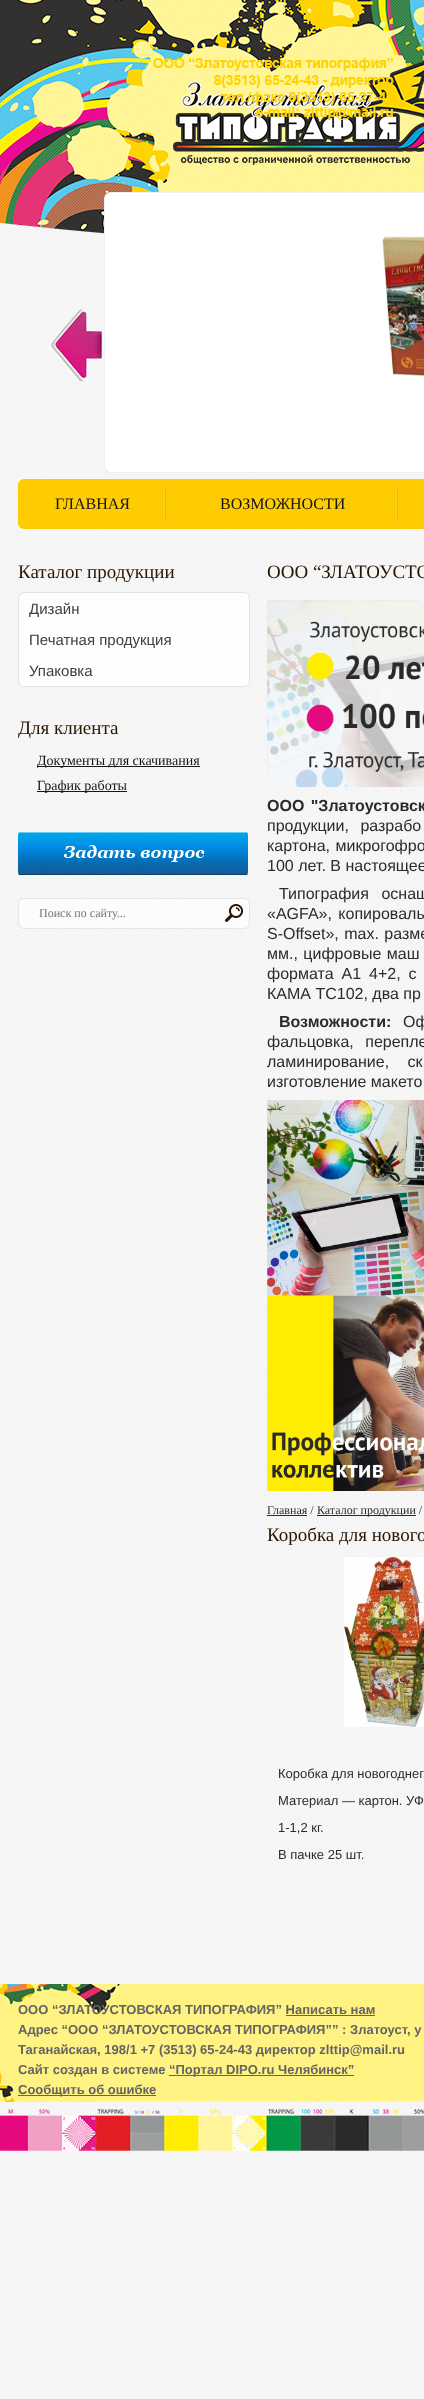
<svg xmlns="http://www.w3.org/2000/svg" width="424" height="2399">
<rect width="100%" height="100%" fill="#fff"/>
<image x="0" y="222" width="424" height="2177" href="media/1.png"/>
<image x="0" y="0" width="424" height="234" href="media/2.png"/>
<image x="173" y="61" width="251" height="104" href="media/4.png"/>
<image x="153" y="58" width="241" height="62" href="media/3.png"/>
<image x="49" y="309" width="54" height="73" href="media/5.png"/>
<image x="104" y="192" width="320" height="281" href="media/6.png"/>
<rect x="18" y="479" width="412" height="50" rx="6" fill="#fecc00"/>
<image x="164" y="488" width="2" height="32" href="media/7.png"/>
<text x="55" y="509" style="font-family:Liberation Serif;font-size:16px;fill:#131417">ГЛАВНАЯ</text>
<image x="396" y="488" width="2" height="32" href="media/7.png"/>
<text x="220" y="509" style="font-family:Liberation Serif;font-size:16px;fill:#131417">ВОЗМОЖНОСТИ</text>
<text x="18" y="578" style="font-family:Liberation Serif;font-size:19px;fill:#291601">Каталог продукции</text>
<rect x="18.5" y="592.5" width="231" height="94" rx="5.5" fill="#fefefe" stroke="#e2e2e2"/>
<text x="29" y="614" style="font-family:Liberation Sans;font-size:15px;fill:#414040">Дизайн</text>
<text x="29" y="645" style="font-family:Liberation Sans;font-size:15px;fill:#414040">Печатная продукция</text>
<text x="29" y="676" style="font-family:Liberation Sans;font-size:15px;fill:#414040">Упаковка</text>
<text x="18" y="734" style="font-family:Liberation Serif;font-size:19px;fill:#291601">Для клиента</text>
<rect x="37" y="766" width="163" height="1" fill="#181818"/>
<text x="37" y="765" style="font-family:Liberation Serif;font-size:14px;fill:#131417">Документы для скачивания</text>
<rect x="37" y="791" width="90" height="1" fill="#181818"/>
<text x="37" y="790" style="font-family:Liberation Serif;font-size:14px;fill:#131417">График работы</text>
<image x="18" y="832" width="230" height="43" href="media/8.png"/>
<rect x="18.5" y="898.5" width="231" height="30" rx="5.5" fill="#fdfcfc" stroke="#e5e5e5"/>
<text x="39" y="917" style="font-family:Liberation Serif;font-size:12px;fill:#757575">Поиск по сайту...</text>
<image x="225" y="904" width="18" height="18" href="media/9.png"/>
<text x="267" y="578" style="font-family:Liberation Serif;font-size:19px;fill:#291601">ООО “ЗЛАТОУСТО</text>
<image x="267" y="600" width="157" height="187" href="media/10.png"/>
<text x="267" y="811" word-spacing="2" style="font-family:Liberation Sans;font-size:16px;font-weight:bold;fill:#2b2b2b">ООО "Златоустовск</text>
<text x="267" y="831" word-spacing="7" style="font-family:Liberation Sans;font-size:16px;fill:#2b2b2b">продукции, разрабо</text>
<text x="267" y="851" word-spacing="1" style="font-family:Liberation Sans;font-size:16px;fill:#2b2b2b">картона, микрогофро</text>
<text x="267" y="871" style="font-family:Liberation Sans;font-size:16px;fill:#2b2b2b">100 лет. В настоящее</text>
<text x="279" y="899" word-spacing="8" style="font-family:Liberation Sans;font-size:16px;fill:#2b2b2b">Типография оснащ</text>
<text x="267" y="919" word-spacing="2" style="font-family:Liberation Sans;font-size:16px;fill:#2b2b2b">«AGFA», копироваль</text>
<text x="267" y="939" word-spacing="1" style="font-family:Liberation Sans;font-size:16px;fill:#2b2b2b">S-Offset», max. разме</text>
<text x="267" y="959" word-spacing="1" style="font-family:Liberation Sans;font-size:16px;fill:#2b2b2b">мм., цифровые маш</text>
<text x="267" y="979" word-spacing="3.5" style="font-family:Liberation Sans;font-size:16px;fill:#2b2b2b">формата А1 4+2, с</text>
<text x="267" y="999" style="font-family:Liberation Sans;font-size:16px;fill:#2b2b2b">КАМА ТС102, два пр</text>
<text x="279" y="1027" style="font-family:Liberation Sans;font-size:16px;font-weight:bold;fill:#2b2b2b">Возможности:</text>
<text x="403" y="1027" word-spacing="7" style="font-family:Liberation Sans;font-size:16px;fill:#2b2b2b">Оф</text>
<text x="267" y="1047" word-spacing="7" style="font-family:Liberation Sans;font-size:16px;fill:#2b2b2b">фальцовка, перепле</text>
<text x="267" y="1067" word-spacing="14" style="font-family:Liberation Sans;font-size:16px;fill:#2b2b2b">ламинирование, ск</text>
<text x="267" y="1087" style="font-family:Liberation Sans;font-size:16px;fill:#2b2b2b">изготовление макето</text>
<image x="267" y="1100" width="157" height="391" href="media/11.png"/>
<text x="267" y="1514" style="font-family:Liberation Serif;font-size:12px;fill:#2b2b2b">Главная /</text>
<rect x="267" y="1515" width="40" height="1" fill="#2b2b2b"/>
<rect x="317" y="1515" width="99" height="1" fill="#2b2b2b"/>
<text x="317" y="1514" style="font-family:Liberation Serif;font-size:12px;fill:#2b2b2b">Каталог продукции /</text>
<text x="267" y="1541" style="font-family:Liberation Serif;font-size:19px;fill:#291601">Коробка для нового</text>
<image x="344" y="1557" width="80" height="170" href="media/12.png"/>
<text x="278" y="1778" style="font-family:Liberation Sans;font-size:13px;fill:#2b2b2b">Коробка для новогоднег</text>
<text x="278" y="1805" style="font-family:Liberation Sans;font-size:13px;fill:#2b2b2b">Материал — картон. УФ</text>
<text x="278" y="1832" style="font-family:Liberation Sans;font-size:13px;fill:#2b2b2b">1-1,2 кг.</text>
<text x="278" y="1859" style="font-family:Liberation Sans;font-size:13px;fill:#2b2b2b">В пачке 25 шт.</text>
<image x="0" y="2102" width="424" height="60" href="media/13.png"/>
<image x="0" y="1984" width="424" height="118" href="media/14.png"/>
<text x="18" y="2014" style="font-family:Liberation Sans;font-size:13px;font-weight:bold;fill:#646464">ООО “ЗЛАТОУСТОВСКАЯ ТИПОГРАФИЯ” Написать нам</text>
<rect x="286" y="2015" width="89" height="1" fill="#646464"/>
<text x="18" y="2034" style="font-family:Liberation Sans;font-size:13px;font-weight:bold;fill:#646464">Адрес “ООО “ЗЛАТОУСТОВСКАЯ ТИПОГРАФИЯ”” : Златоуст, у</text>
<text x="18" y="2054" style="font-family:Liberation Sans;font-size:13px;font-weight:bold;fill:#646464">Таганайская, 198/1 +7 (3513) 65-24-43 директор zlttip@mail.ru</text>
<text x="18" y="2074" style="font-family:Liberation Sans;font-size:13px;font-weight:bold;fill:#646464">Сайт создан в системе</text>
<rect x="169" y="2075" width="185" height="1" fill="#646464"/>
<text x="169" y="2074" style="font-family:Liberation Sans;font-size:13px;font-weight:bold;fill:#646464">“Портал DIPO.ru Челябинск”</text>
<rect x="18" y="2095" width="138" height="1" fill="#646464"/>
<text x="18" y="2094" style="font-family:Liberation Sans;font-size:13px;font-weight:bold;fill:#646464">Сообщить об ошибке</text>
</svg>
